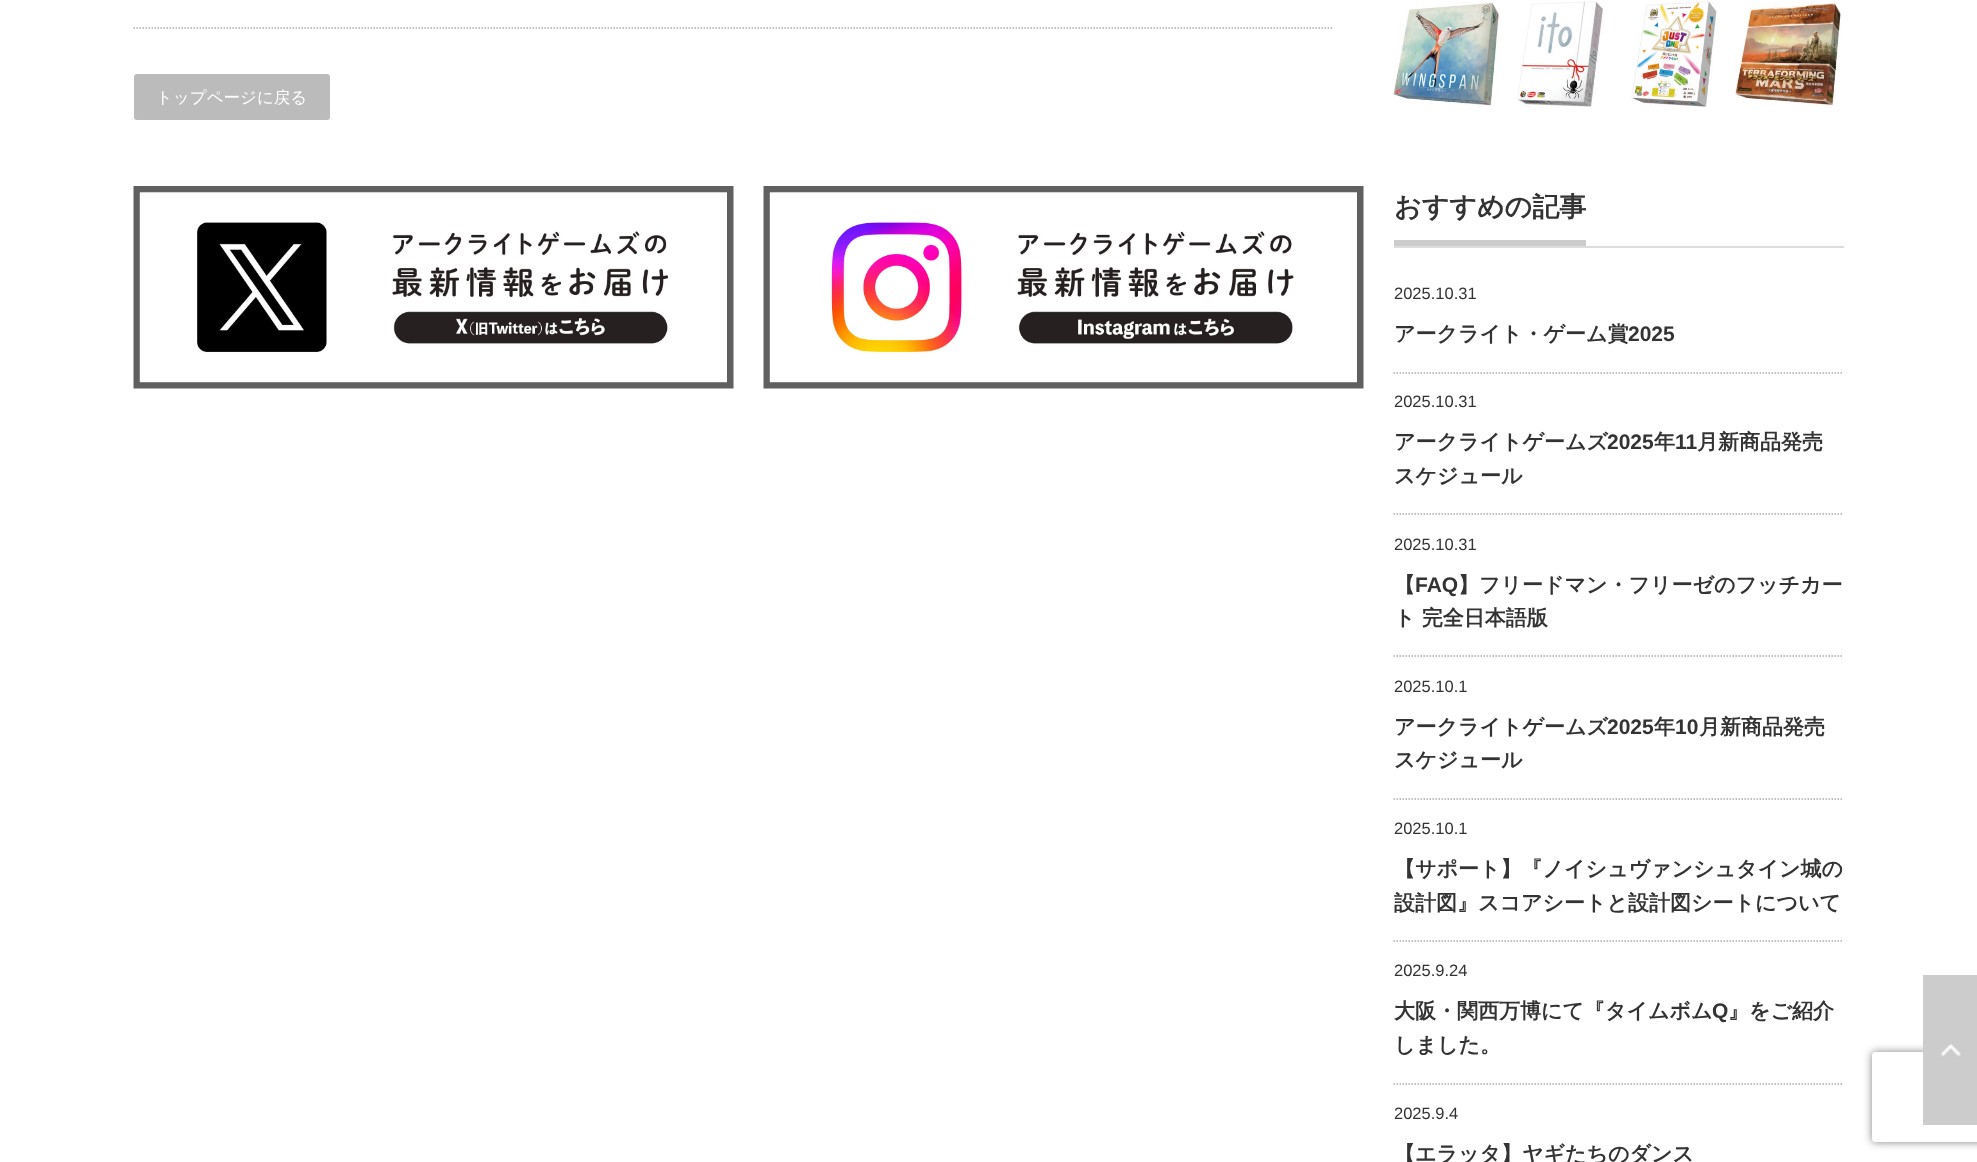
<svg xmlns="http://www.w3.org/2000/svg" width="1977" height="1162">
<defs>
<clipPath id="clip1"><path d="M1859 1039h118v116h-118zm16 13h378c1.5 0 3 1.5 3 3v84c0 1.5-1.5 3-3 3h-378c-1.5 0-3-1.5-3-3v-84c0-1.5 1.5-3 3-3z" clip-rule="evenodd"/></clipPath>
</defs>
<rect width="100%" height="100%" fill="#fff"/>
<path d="M133.5 28h1200" fill="none" stroke="#aaa" stroke-width="1.5" stroke-dasharray="1.5 1.5"/>
<rect x="134" y="74" width="196" height="46" rx="3" fill="#bbb"/>
<text x="156" y="103" style="font-family:WenQuanYi Zen Hei;font-size:16.5px;font-weight:500;fill:#fff">トップページに戻る</text>
<image x="133" y="186" width="601" height="203" href="media/1.png"/>
<image x="763" y="186" width="601" height="203" href="media/2.png"/>
<image x="1393" y="1" width="106" height="105" href="media/3.png"/>
<image x="1517" y="1" width="87" height="106" href="media/4.png"/>
<image x="1631" y="1" width="86" height="106" href="media/5.png"/>
<image x="1735" y="1" width="106" height="105" href="media/6.png"/>
<rect x="1394" y="246" width="450" height="2" fill="#ddd"/>
<rect x="1394" y="240" width="192" height="6" fill="#ccc"/>
<text x="1394" y="216" style="font-family:WenQuanYi Zen Hei;font-size:27px;font-weight:bold;fill:#333">おすすめの記事</text>
<path d="M1393.5 373h450" fill="none" stroke="#aaa" stroke-width="1.5" stroke-dasharray="1.5 1.5"/>
<text x="1394" y="299" style="font-family:Liberation Sans;font-size:16.5px;fill:#333">2025.10.31</text>
<text x="1394" y="341" style="font-family:WenQuanYi Zen Hei;font-size:21px;font-weight:bold;fill:#333">アークライト・ゲーム賞</text>
<text x="1628" y="341" style="font-family:Liberation Sans;font-size:21px;font-weight:bold;fill:#333">2025</text>
<path d="M1393.5 514h450" fill="none" stroke="#aaa" stroke-width="1.5" stroke-dasharray="1.5 1.5"/>
<text x="1394" y="407" style="font-family:Liberation Sans;font-size:16.5px;fill:#333">2025.10.31</text>
<text x="1394" y="449" style="font-family:WenQuanYi Zen Hei;font-size:21px;font-weight:bold;fill:#333">アークライトゲームズ</text>
<text x="1607" y="449" style="font-family:Liberation Sans;font-size:21px;font-weight:bold;fill:#333">2025</text>
<text x="1654" y="449" style="font-family:WenQuanYi Zen Hei;font-size:21px;font-weight:bold;fill:#333">年</text>
<text x="1675" y="449" style="font-family:Liberation Sans;font-size:21px;font-weight:bold;fill:#333">11</text>
<text x="1697" y="449" style="font-family:WenQuanYi Zen Hei;font-size:21px;font-weight:bold;fill:#333">月新商品発売</text>
<text x="1394" y="483" style="font-family:WenQuanYi Zen Hei;font-size:21px;font-weight:bold;fill:#333">スケジュール</text>
<path d="M1393.5 656h450" fill="none" stroke="#aaa" stroke-width="1.5" stroke-dasharray="1.5 1.5"/>
<text x="1394" y="550" style="font-family:Liberation Sans;font-size:16.5px;fill:#333">2025.10.31</text>
<text x="1394" y="592" style="font-family:WenQuanYi Zen Hei;font-size:21px;font-weight:bold;fill:#333">【</text>
<text x="1415" y="592" style="font-family:Liberation Sans;font-size:21px;font-weight:bold;fill:#333">FAQ</text>
<text x="1458" y="592" style="font-family:WenQuanYi Zen Hei;font-size:21px;font-weight:bold;fill:#333">】フリードマン・フリーゼのフッチカー</text>
<text x="1394" y="625" style="font-family:WenQuanYi Zen Hei;font-size:21px;font-weight:bold;fill:#333">ト 完全日本語版</text>
<path d="M1393.5 799h450" fill="none" stroke="#aaa" stroke-width="1.5" stroke-dasharray="1.5 1.5"/>
<text x="1394" y="692" style="font-family:Liberation Sans;font-size:16.5px;fill:#333">2025.10.1</text>
<text x="1394" y="734" style="font-family:WenQuanYi Zen Hei;font-size:21px;font-weight:bold;fill:#333">アークライトゲームズ</text>
<text x="1607" y="734" style="font-family:Liberation Sans;font-size:21px;font-weight:bold;fill:#333">2025</text>
<text x="1654" y="734" style="font-family:WenQuanYi Zen Hei;font-size:21px;font-weight:bold;fill:#333">年</text>
<text x="1675" y="734" style="font-family:Liberation Sans;font-size:21px;font-weight:bold;fill:#333">10</text>
<text x="1699" y="734" style="font-family:WenQuanYi Zen Hei;font-size:21px;font-weight:bold;fill:#333">月新商品発売</text>
<text x="1394" y="767" style="font-family:WenQuanYi Zen Hei;font-size:21px;font-weight:bold;fill:#333">スケジュール</text>
<path d="M1393.5 941h450" fill="none" stroke="#aaa" stroke-width="1.5" stroke-dasharray="1.5 1.5"/>
<text x="1394" y="834" style="font-family:Liberation Sans;font-size:16.5px;fill:#333">2025.10.1</text>
<text x="1394" y="876" style="font-family:WenQuanYi Zen Hei;font-size:21px;font-weight:bold;fill:#333">【サポート】『ノイシュヴァンシュタイン城の</text>
<text x="1394" y="910" style="font-family:WenQuanYi Zen Hei;font-size:21px;font-weight:bold;fill:#333">設計図』スコアシートと設計図シートについて</text>
<path d="M1393.5 1084h450" fill="none" stroke="#aaa" stroke-width="1.5" stroke-dasharray="1.5 1.5"/>
<text x="1394" y="976" style="font-family:Liberation Sans;font-size:16.5px;fill:#333">2025.9.24</text>
<text x="1394" y="1018" style="font-family:WenQuanYi Zen Hei;font-size:21px;font-weight:bold;fill:#333">大阪・関西万博にて『タイムボム</text>
<text x="1712" y="1018" style="font-family:Liberation Sans;font-size:21px;font-weight:bold;fill:#333">Q</text>
<text x="1728" y="1018" style="font-family:WenQuanYi Zen Hei;font-size:21px;font-weight:bold;fill:#333">』をご紹介</text>
<text x="1394" y="1052" style="font-family:WenQuanYi Zen Hei;font-size:21px;font-weight:bold;fill:#333">しました。</text>
<text x="1394" y="1119" style="font-family:Liberation Sans;font-size:16.5px;fill:#333">2025.9.4</text>
<text x="1394" y="1161" style="font-family:WenQuanYi Zen Hei;font-size:21px;font-weight:bold;fill:#333">【エラッタ】ヤギたちのダンス</text>
<g clip-path="url(#clip1)">
<rect x="1872" y="1052" width="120" height="90" rx="3" fill="#808080" filter="blur(4px)"/>
</g>
<rect x="1923" y="975" width="54" height="150" fill="#ccc"/>
<image x="1941" y="1044" width="20" height="13" href="media/7.png"/>
</svg>
